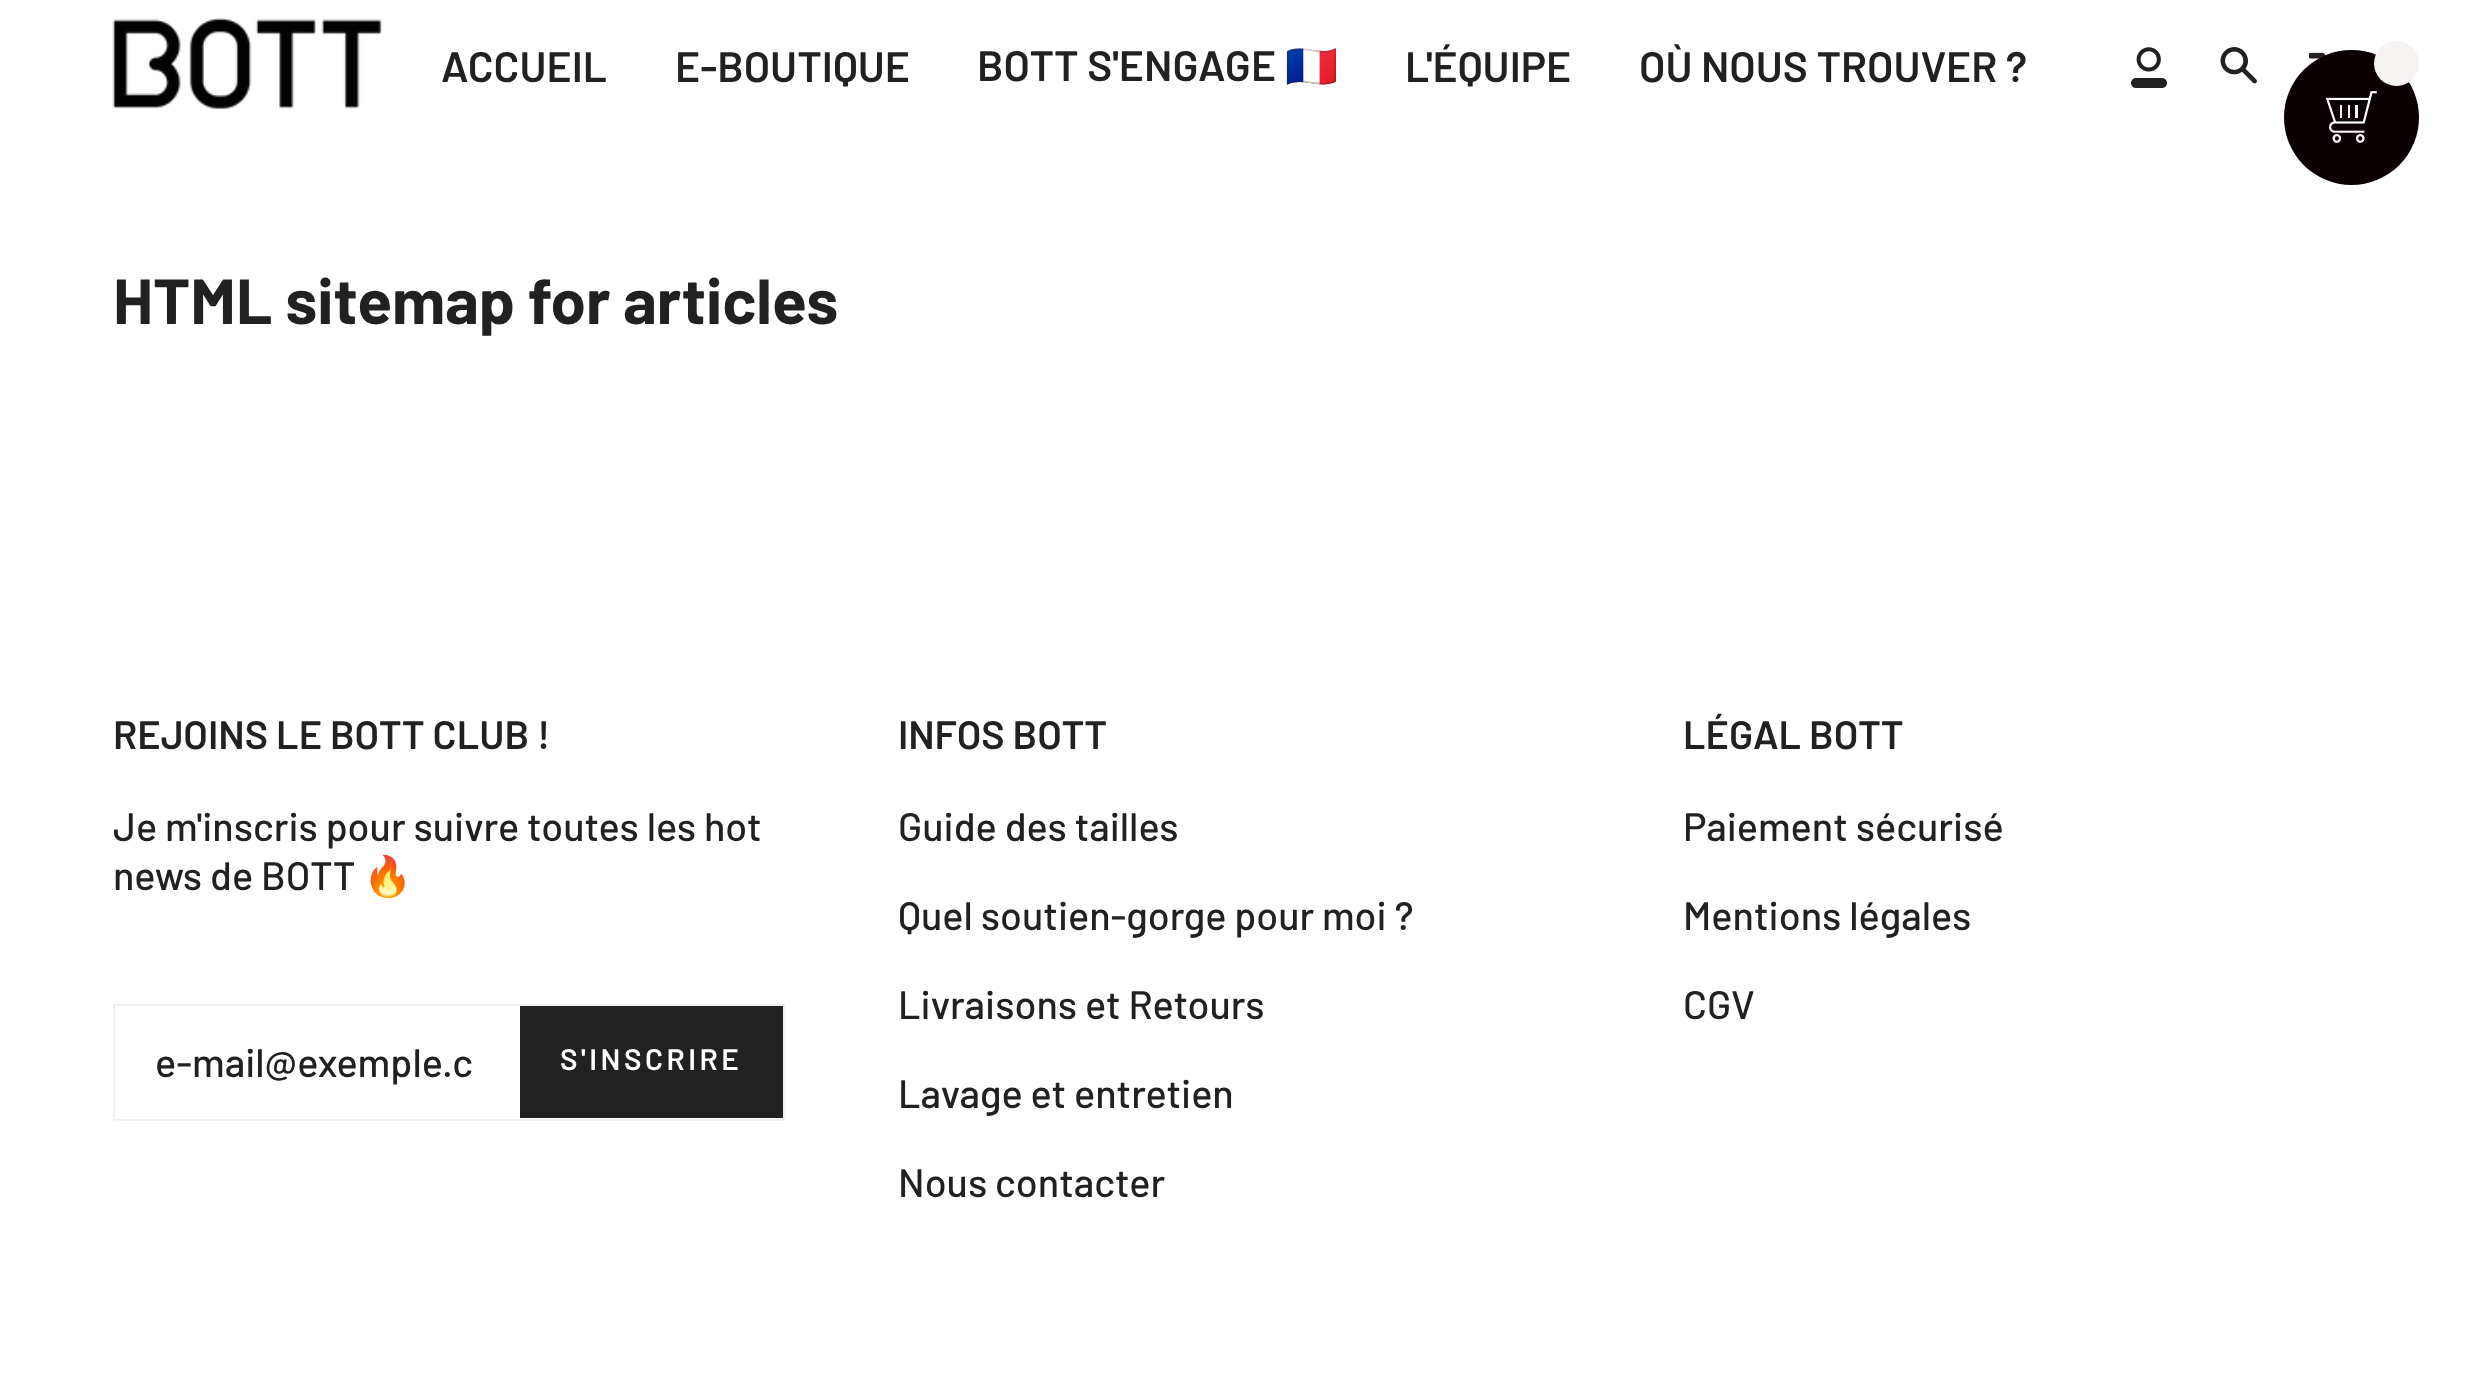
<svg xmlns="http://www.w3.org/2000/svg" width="2467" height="1396">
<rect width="100%" height="100%" fill="#fff"/>
<image x="112" y="18" width="270" height="91" href="media/1.png"/>
<text x="441" y="82" style="font-family:Barlow;font-size:42.5px;font-weight:600;fill:#212121">ACCUEIL</text>
<text x="675" y="82" style="font-family:Barlow;font-size:42.5px;font-weight:600;fill:#212121">E-BOUTIQUE</text>
<text x="977" y="81" style="font-family:Barlow;font-size:42.5px;font-weight:600;fill:#212121">BOTT S'ENGAGE</text>
<text x="1285" y="81" style="font-family:Noto Color Emoji;font-size:42.5px;font-weight:bold;fill:#212121">🇫🇷</text>
<text x="1405" y="82" style="font-family:Barlow;font-size:42.5px;font-weight:600;fill:#212121">L'ÉQUIPE</text>
<text x="1639" y="82" style="font-family:Barlow;font-size:42.5px;font-weight:600;fill:#212121">OÙ NOUS TROUVER ?</text>
<image x="2131" y="47" width="36" height="41" href="media/2.png"/>
<image x="2220" y="47" width="37" height="37" href="media/3.png"/>
<image x="2309" y="52" width="17" height="7" href="media/4.png"/>
<text x="113" y="324" style="font-family:Barlow;font-size:63.75px;font-weight:bold;fill:#212121">HTML sitemap for articles</text>
<circle cx="2351.5" cy="117.5" r="67.5" fill="#0a0002"/>
<circle cx="2396.5" cy="63.5" r="22.5" fill="#f7f3f3"/>
<image x="2325" y="91" width="52" height="52" href="media/5.png"/>
<text x="113" y="749" style="font-family:Barlow;font-size:39.6px;font-weight:600;fill:#212121">REJOINS LE BOTT CLUB !</text>
<text x="113" y="841" style="font-family:Barlow;font-size:39.6px;font-weight:500;fill:#212121">Je m'inscris pour suivre toutes les hot</text>
<text x="113" y="890" style="font-family:Barlow;font-size:39.6px;font-weight:500;fill:#212121">news de BOTT</text>
<text x="363" y="890" style="font-family:Noto Color Emoji;font-size:39.6px;fill:#212121">🔥</text>
<rect x="114" y="1005" width="670" height="115" fill="none" stroke="#f0f0f0" stroke-width="2"/>
<text x="155" y="1077" style="font-family:Barlow;font-size:39.6px;font-weight:500;fill:#212121">e-mail@exemple.c</text>
<rect x="520" y="1006" width="263" height="112" fill="#212121"/>
<text x="560" y="1070" style="font-family:Barlow;font-size:29.75px;font-weight:600;letter-spacing:3.5px;fill:#fff">S'INSCRIRE</text>
<text x="898" y="749" style="font-family:Barlow;font-size:39.6px;font-weight:600;fill:#212121">INFOS BOTT</text>
<text x="898" y="841" style="font-family:Barlow;font-size:39.6px;font-weight:500;fill:#212121">Guide des tailles</text>
<text x="898" y="930" style="font-family:Barlow;font-size:39.6px;font-weight:500;fill:#212121">Quel soutien-gorge pour moi ?</text>
<text x="898" y="1019" style="font-family:Barlow;font-size:39.6px;font-weight:500;fill:#212121">Livraisons et Retours</text>
<text x="898" y="1108" style="font-family:Barlow;font-size:39.6px;font-weight:500;fill:#212121">Lavage et entretien</text>
<text x="898" y="1197" style="font-family:Barlow;font-size:39.6px;font-weight:500;fill:#212121">Nous contacter</text>
<text x="1683" y="749" style="font-family:Barlow;font-size:39.6px;font-weight:600;fill:#212121">LÉGAL BOTT</text>
<text x="1683" y="841" style="font-family:Barlow;font-size:39.6px;font-weight:500;fill:#212121">Paiement sécurisé</text>
<text x="1683" y="930" style="font-family:Barlow;font-size:39.6px;font-weight:500;fill:#212121">Mentions légales</text>
<text x="1683" y="1019" style="font-family:Barlow;font-size:39.6px;font-weight:500;fill:#212121">CGV</text>
</svg>
